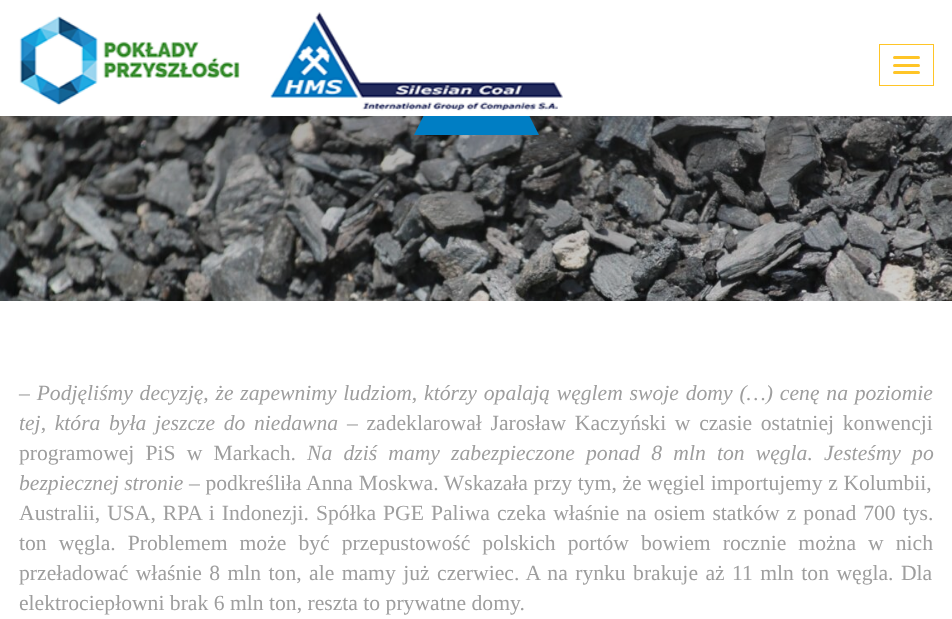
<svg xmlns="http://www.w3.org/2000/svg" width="952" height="619">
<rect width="100%" height="100%" fill="#fff"/>
<image x="0" y="116" width="952" height="185" href="media/1.png"/>
<path d="M539 135h-125l62-125z" fill="#007ec4"/>
<rect x="423" y="10" width="107" height="106" fill="#fff"/>
<image x="19" y="16" width="221" height="90" href="media/2.png"/>
<image x="270" y="12" width="293" height="99" href="media/3.png"/>
<rect x="879.5" y="44.5" width="54" height="41" fill="none" stroke="#ffc527"/>
<rect x="893" y="56" width="27" height="3" rx="1.5" fill="#ffc527"/>
<rect x="893" y="64" width="27" height="3" rx="1.5" fill="#ffc527"/>
<rect x="893" y="71" width="27" height="3" rx="1.5" fill="#ffc527"/>
<text x="19" y="400" word-spacing="1.4" style="font-family:Liberation Serif;font-size:21.65px;font-style:italic;fill:#9e9e9e">– Podjęliśmy decyzję, że zapewnimy ludziom, którzy opalają węglem swoje domy (…) cenę na poziomie</text>
<text x="19" y="430" word-spacing="3.25" style="font-family:Liberation Serif;font-size:21.65px;font-style:italic;fill:#9e9e9e">tej, która była jeszcze do niedawna</text>
<text x="347" y="430" word-spacing="3.25" style="font-family:Liberation Serif;font-size:21.65px;fill:#9e9e9e">– zadeklarował Jarosław Kaczyński w czasie ostatniej konwencji</text>
<text x="19" y="460" word-spacing="5.75" style="font-family:Liberation Serif;font-size:21.65px;fill:#9e9e9e">programowej PiS w Markach.</text>
<text x="307" y="460" word-spacing="5.75" style="font-family:Liberation Serif;font-size:21.65px;font-style:italic;fill:#9e9e9e">Na dziś mamy zabezpieczone ponad 8 mln ton węgla. Jesteśmy po</text>
<text x="19" y="490" style="font-family:Liberation Serif;font-size:21.65px;font-style:italic;fill:#9e9e9e">bezpiecznej stronie</text>
<text x="189" y="490" word-spacing="0.25" style="font-family:Liberation Serif;font-size:21.65px;fill:#9e9e9e">– podkreśliła Anna Moskwa. Wskazała przy tym, że węgiel importujemy z Kolumbii,</text>
<text x="19" y="520" word-spacing="1.6" style="font-family:Liberation Serif;font-size:21.65px;fill:#9e9e9e">Australii, USA, RPA i Indonezji. Spółka PGE Paliwa czeka właśnie na osiem statków z ponad 700 tys.</text>
<text x="19" y="550" word-spacing="6.6" style="font-family:Liberation Serif;font-size:21.65px;fill:#9e9e9e">ton węgla. Problemem może być przepustowość polskich portów bowiem rocznie można w nich</text>
<text x="19" y="580" word-spacing="2" style="font-family:Liberation Serif;font-size:21.65px;fill:#9e9e9e">przeładować właśnie 8 mln ton, ale mamy już czerwiec. A na rynku brakuje aż 11 mln ton węgla. Dla</text>
<text x="19" y="610" style="font-family:Liberation Serif;font-size:21.65px;fill:#9e9e9e">elektrociepłowni brak 6 mln ton, reszta to prywatne domy.</text>
</svg>
